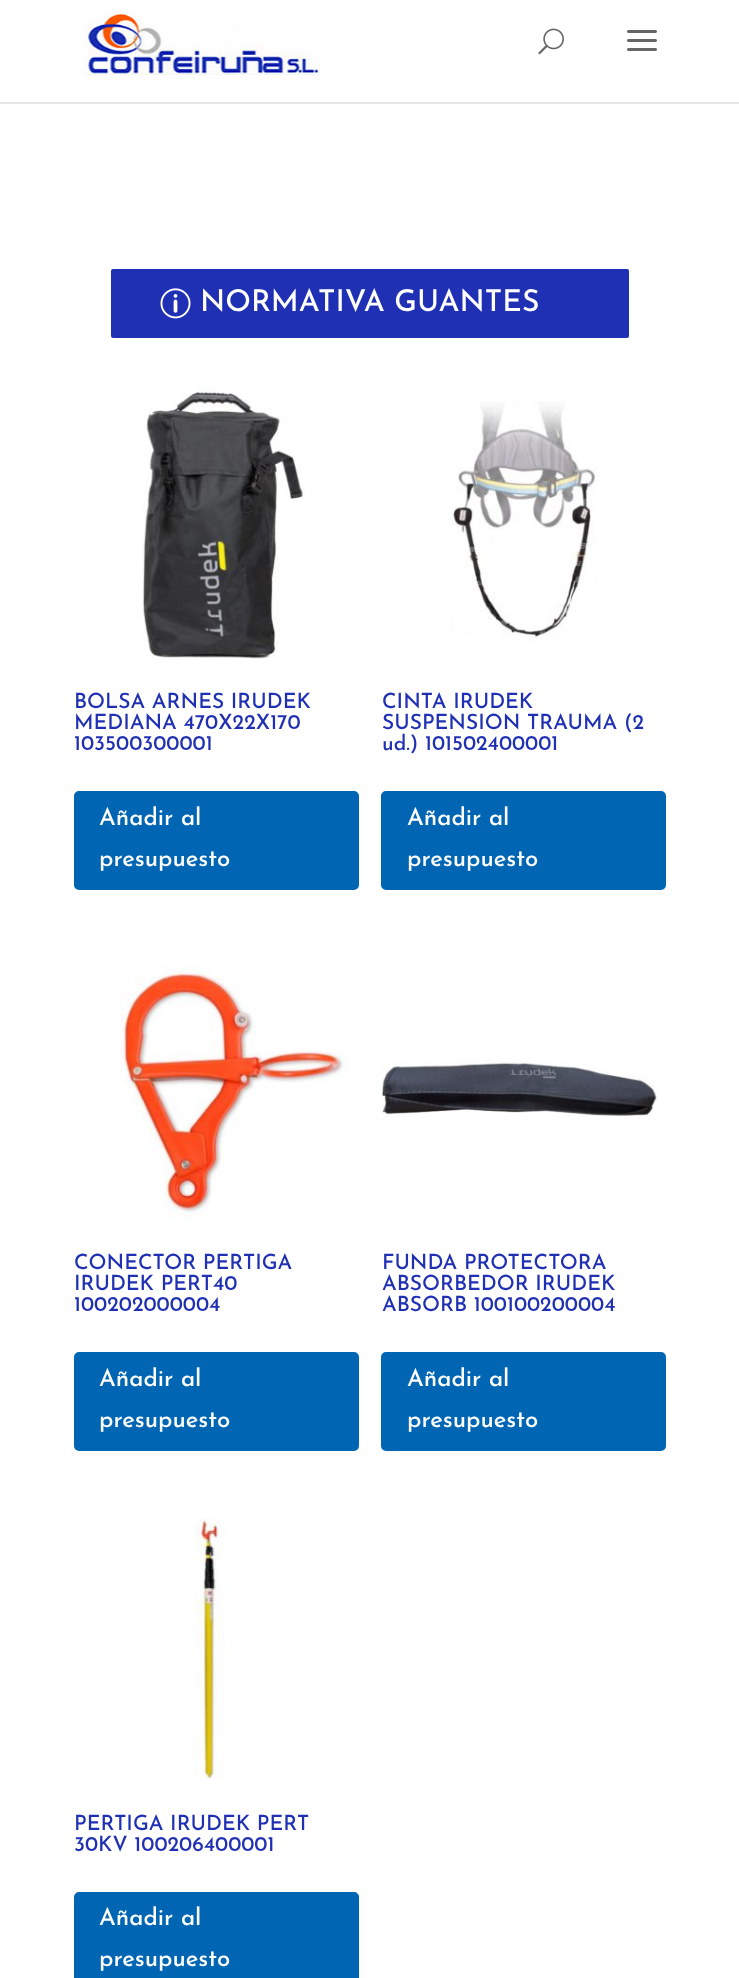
<svg xmlns="http://www.w3.org/2000/svg" width="739" height="1978">
<rect width="100%" height="100%" fill="#fff"/>
<path d="M0 102v2h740v-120v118z" fill="#e6e6e6"/>
<image x="81" y="9" width="240" height="66" href="media/1.png"/>
<image x="538" y="28" width="26" height="27" href="media/2.png"/>
<image x="627" y="30" width="30" height="21" href="media/3.png"/>
<rect x="109.5" y="267.5" width="521" height="72" rx="3.5" fill="#2030b4" stroke="#fff" stroke-width="3"/>
<image x="160" y="288" width="31" height="31" href="media/4.png"/>
<text x="200" y="311" style="font-family:Josefin Sans;font-size:30px;font-weight:500;fill:#fff">NORMATIVA GUANTES</text>
<image x="142" y="385" width="164" height="274" href="media/5.png"/>
<text x="74" y="708" style="font-family:Josefin Sans;font-size:21px;font-weight:500;fill:#2030b4">BOLSA ARNES IRUDEK</text>
<text x="74" y="729" style="font-family:Josefin Sans;font-size:21px;font-weight:500;fill:#2030b4">MEDIANA 470X22X170</text>
<text x="74" y="750" style="font-family:Josefin Sans;font-size:21px;font-weight:500;fill:#2030b4">103500300001</text>
<rect x="75" y="792" width="283" height="97" rx="4" fill="#0066b4" stroke="#0066b4" stroke-width="2"/>
<text x="99" y="825" style="font-family:Josefin Sans;font-size:24px;font-weight:500;fill:#fff">Añadir al</text>
<text x="99" y="866" style="font-family:Josefin Sans;font-size:24px;font-weight:500;fill:#fff">presupuesto</text>
<image x="450" y="401" width="148" height="242" href="media/6.png"/>
<text x="382" y="708" style="font-family:Josefin Sans;font-size:21px;font-weight:500;fill:#2030b4">CINTA IRUDEK</text>
<text x="382" y="729" style="font-family:Josefin Sans;font-size:21px;font-weight:500;fill:#2030b4">SUSPENSION TRAUMA (2</text>
<text x="382" y="750" style="font-family:Josefin Sans;font-size:21px;font-weight:500;fill:#2030b4">ud.) 101502400001</text>
<rect x="382" y="792" width="283" height="97" rx="4" fill="#0066b4" stroke="#0066b4" stroke-width="2"/>
<text x="407" y="825" style="font-family:Josefin Sans;font-size:24px;font-weight:500;fill:#fff">Añadir al</text>
<text x="407" y="866" style="font-family:Josefin Sans;font-size:24px;font-weight:500;fill:#fff">presupuesto</text>
<image x="119" y="964" width="229" height="255" href="media/7.png"/>
<text x="74" y="1269" style="font-family:Josefin Sans;font-size:21px;font-weight:500;fill:#2030b4">CONECTOR PERTIGA</text>
<text x="74" y="1290" style="font-family:Josefin Sans;font-size:21px;font-weight:500;fill:#2030b4">IRUDEK PERT40</text>
<text x="74" y="1311" style="font-family:Josefin Sans;font-size:21px;font-weight:500;fill:#2030b4">100202000004</text>
<rect x="75" y="1353" width="283" height="97" rx="4" fill="#0066b4" stroke="#0066b4" stroke-width="2"/>
<text x="99" y="1386" style="font-family:Josefin Sans;font-size:24px;font-weight:500;fill:#fff">Añadir al</text>
<text x="99" y="1427" style="font-family:Josefin Sans;font-size:24px;font-weight:500;fill:#fff">presupuesto</text>
<image x="381" y="1060" width="278" height="60" href="media/8.png"/>
<text x="382" y="1269" style="font-family:Josefin Sans;font-size:21px;font-weight:500;fill:#2030b4">FUNDA PROTECTORA</text>
<text x="382" y="1290" style="font-family:Josefin Sans;font-size:21px;font-weight:500;fill:#2030b4">ABSORBEDOR IRUDEK</text>
<text x="382" y="1311" style="font-family:Josefin Sans;font-size:21px;font-weight:500;fill:#2030b4">ABSORB 100100200004</text>
<rect x="382" y="1353" width="283" height="97" rx="4" fill="#0066b4" stroke="#0066b4" stroke-width="2"/>
<text x="407" y="1386" style="font-family:Josefin Sans;font-size:24px;font-weight:500;fill:#fff">Añadir al</text>
<text x="407" y="1427" style="font-family:Josefin Sans;font-size:24px;font-weight:500;fill:#fff">presupuesto</text>
<image x="194" y="1517" width="32" height="263" href="media/9.png"/>
<text x="74" y="1830" style="font-family:Josefin Sans;font-size:21px;font-weight:500;fill:#2030b4">PERTIGA IRUDEK PERT</text>
<text x="74" y="1851" style="font-family:Josefin Sans;font-size:21px;font-weight:500;fill:#2030b4">30KV 100206400001</text>
<rect x="75" y="1893" width="283" height="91" rx="4" fill="#0066b4" stroke="#0066b4" stroke-width="2"/>
<text x="99" y="1925" style="font-family:Josefin Sans;font-size:24px;font-weight:500;fill:#fff">Añadir al</text>
<text x="99" y="1966" style="font-family:Josefin Sans;font-size:24px;font-weight:500;fill:#fff">presupuesto</text>
</svg>
